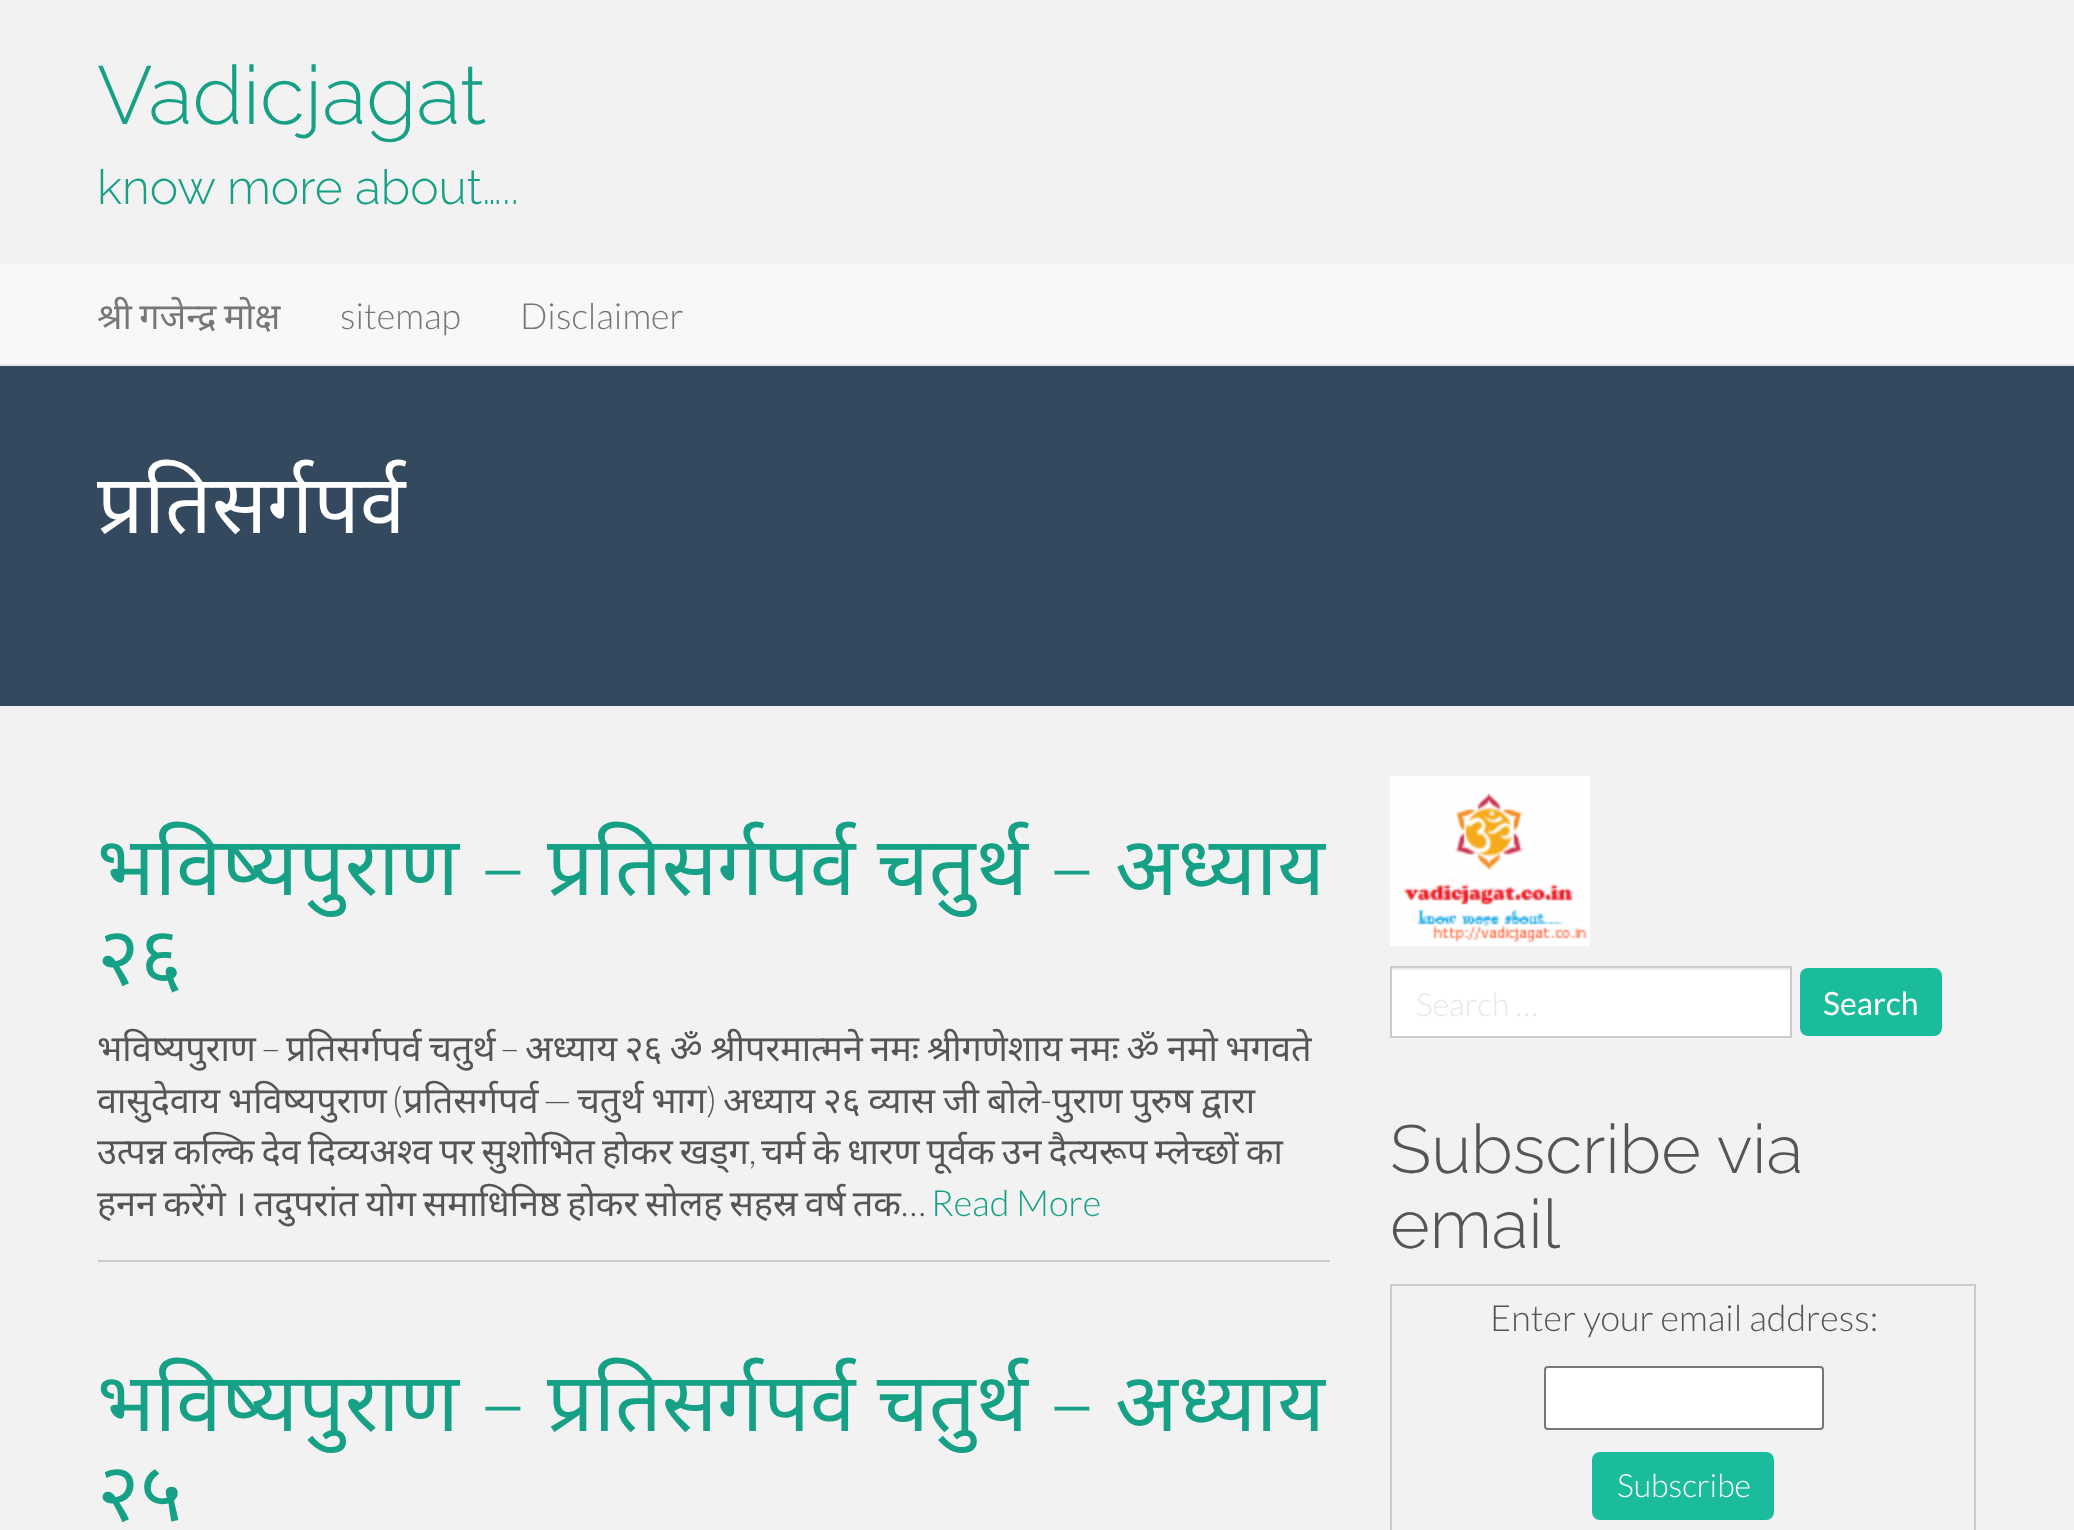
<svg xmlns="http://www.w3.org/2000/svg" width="2074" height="1530">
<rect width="100%" height="100%" fill="#f2f2f2"/>
<text x="97" y="124" style="font-family:Raleway;font-size:82px;font-weight:300;fill:#16a085">Vadicjagat</text>
<text x="97" y="204" style="font-family:Raleway;font-size:48px;font-weight:300;fill:#16a085">know more about…..</text>
<rect y="264" width="2074" height="100" fill="#f8f8f8"/>
<rect y="364" width="2074" height="2" fill="#e7e7e7"/>
<text x="97" y="329" word-spacing="-2" style="font-family:Noto Sans;font-size:36px;fill:#777">श्री गजेन्द्र मोक्ष</text>
<text x="340" y="329" style="font-family:Lato;font-size:36px;font-weight:300;fill:#777">sitemap</text>
<text x="520" y="329" style="font-family:Lato;font-size:36px;font-weight:300;fill:#777">Disclaimer</text>
<rect y="366" width="2074" height="340" fill="#34495e"/>
<text x="97" y="533" style="font-family:Noto Sans;font-size:82px;fill:#fff">प्रतिसर्गपर्व</text>
<text x="97" y="895" style="font-family:Noto Sans;font-size:82px;fill:#16a085">भविष्यपुराण</text>
<text x="480" y="895" style="font-family:Raleway;font-size:82px;font-weight:300;fill:#16a085">–</text>
<text x="547" y="895" style="font-family:Noto Sans;font-size:82px;fill:#16a085">प्रतिसर्गपर्व चतुर्थ</text>
<text x="1049" y="895" style="font-family:Raleway;font-size:82px;font-weight:300;fill:#16a085">–</text>
<text x="1115" y="895" style="font-family:Noto Sans;font-size:82px;fill:#16a085">अध्याय</text>
<text x="97" y="985" style="font-family:Noto Sans;font-size:82px;fill:#16a085">२६</text>
<text x="97" y="1061" style="font-family:Noto Sans;font-size:36px;fill:#555">भविष्यपुराण</text>
<text x="261" y="1061" style="font-family:Lato;font-size:36px;font-weight:300;fill:#555">–</text>
<text x="286" y="1061" word-spacing="-1.75" style="font-family:Noto Sans;font-size:36px;fill:#555">प्रतिसर्गपर्व चतुर्थ</text>
<text x="500" y="1061" style="font-family:Lato;font-size:36px;font-weight:300;fill:#555">–</text>
<text x="525" y="1061" word-spacing="-1.75" style="font-family:Noto Sans;font-size:36px;fill:#555">अध्याय २६ ॐ श्रीपरमात्मने नमः श्रीगणेशाय नमः ॐ नमो भगवते</text>
<text x="97" y="1113" word-spacing="-1.5" style="font-family:Noto Sans;font-size:36px;fill:#555">वासुदेवाय भविष्यपुराण</text>
<text x="392" y="1113" style="font-family:Lato;font-size:36px;font-weight:300;fill:#555">(</text>
<text x="403" y="1113" style="font-family:Noto Sans;font-size:36px;fill:#555">प्रतिसर्गपर्व</text>
<text x="543" y="1113" style="font-family:Lato;font-size:36px;font-weight:300;fill:#555">—</text>
<text x="577" y="1113" word-spacing="-1.5" style="font-family:Noto Sans;font-size:36px;fill:#555">चतुर्थ भाग</text>
<text x="706" y="1113" style="font-family:Lato;font-size:36px;font-weight:300;fill:#555">)</text>
<text x="723" y="1113" word-spacing="-1.5" style="font-family:Noto Sans;font-size:36px;fill:#555">अध्याय २६ व्यास जी बोले</text>
<text x="1040" y="1113" style="font-family:Lato;font-size:36px;font-weight:300;fill:#555">-</text>
<text x="1052" y="1113" word-spacing="-1.5" style="font-family:Noto Sans;font-size:36px;fill:#555">पुराण पुरुष द्वारा</text>
<text x="97" y="1164" word-spacing="-2.25" style="font-family:Noto Sans;font-size:36px;fill:#555">उत्पन्न कल्कि देव दिव्यअश्व पर सुशोभित होकर खड्ग</text>
<text x="749" y="1164" style="font-family:Lato;font-size:36px;font-weight:300;fill:#555">,</text>
<text x="761" y="1164" word-spacing="-2.25" style="font-family:Noto Sans;font-size:36px;fill:#555">चर्म के धारण पूर्वक उन दैत्यरूप म्लेच्छों का</text>
<text x="97" y="1216" word-spacing="-2.25" style="font-family:Noto Sans;font-size:36px;fill:#555">हनन करेंगे । तदुपरांत योग समाधिनिष्ठ होकर सोलह सहस्र वर्ष तक</text>
<text x="901" y="1216" style="font-family:Lato;font-size:36px;font-weight:300;fill:#555">…</text>
<text x="931" y="1216" style="font-family:Lato;font-size:36px;font-weight:300;fill:#16a085">Read More</text>
<rect x="98" y="1260" width="1232" height="2" fill="#ccc"/>
<text x="97" y="1431" style="font-family:Noto Sans;font-size:82px;fill:#16a085">भविष्यपुराण</text>
<text x="480" y="1431" style="font-family:Raleway;font-size:82px;font-weight:300;fill:#16a085">–</text>
<text x="547" y="1431" style="font-family:Noto Sans;font-size:82px;fill:#16a085">प्रतिसर्गपर्व चतुर्थ</text>
<text x="1049" y="1431" style="font-family:Raleway;font-size:82px;font-weight:300;fill:#16a085">–</text>
<text x="1115" y="1431" style="font-family:Noto Sans;font-size:82px;fill:#16a085">अध्याय</text>
<text x="97" y="1521" style="font-family:Noto Sans;font-size:82px;fill:#16a085">२५</text>
<image x="1390" y="776" width="200" height="170" href="media/1.png"/>
<rect x="1392" y="970" width="398" height="66" fill="#fff"/>
<rect x="1392" y="968" width="398" height="2" fill="#ececec"/>
<rect x="1391" y="967" width="400" height="70" fill="none" stroke="#ccc" stroke-width="2"/>
<text x="1416" y="1016" style="font-family:Lato;font-size:32px;font-weight:300;fill:#e7e7e7">Search …</text>
<rect x="1800" y="968" width="142" height="68" rx="8" fill="#1abc9c"/>
<text x="1823" y="1015" style="font-family:Lato;font-size:32px;fill:#fff">Search</text>
<text x="1390" y="1173" style="font-family:Raleway;font-size:68px;font-weight:300;fill:#555">Subscribe via</text>
<text x="1390" y="1248" style="font-family:Raleway;font-size:68px;font-weight:300;fill:#555">email</text>
<rect x="1391" y="1285" width="584" height="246" fill="none" stroke="#ccc" stroke-width="2"/>
<text x="1490" y="1331" style="font-family:Lato;font-size:36px;font-weight:300;fill:#555">Enter your email address:</text>
<rect x="1545" y="1367" width="278" height="62" rx="3" fill="#fff" stroke="#767676" stroke-width="2"/>
<rect x="1592" y="1452" width="182" height="68" rx="8" fill="#1abc9c"/>
<text x="1617" y="1497" style="font-family:Lato;font-size:32px;font-weight:300;fill:#fff">Subscribe</text>
</svg>
